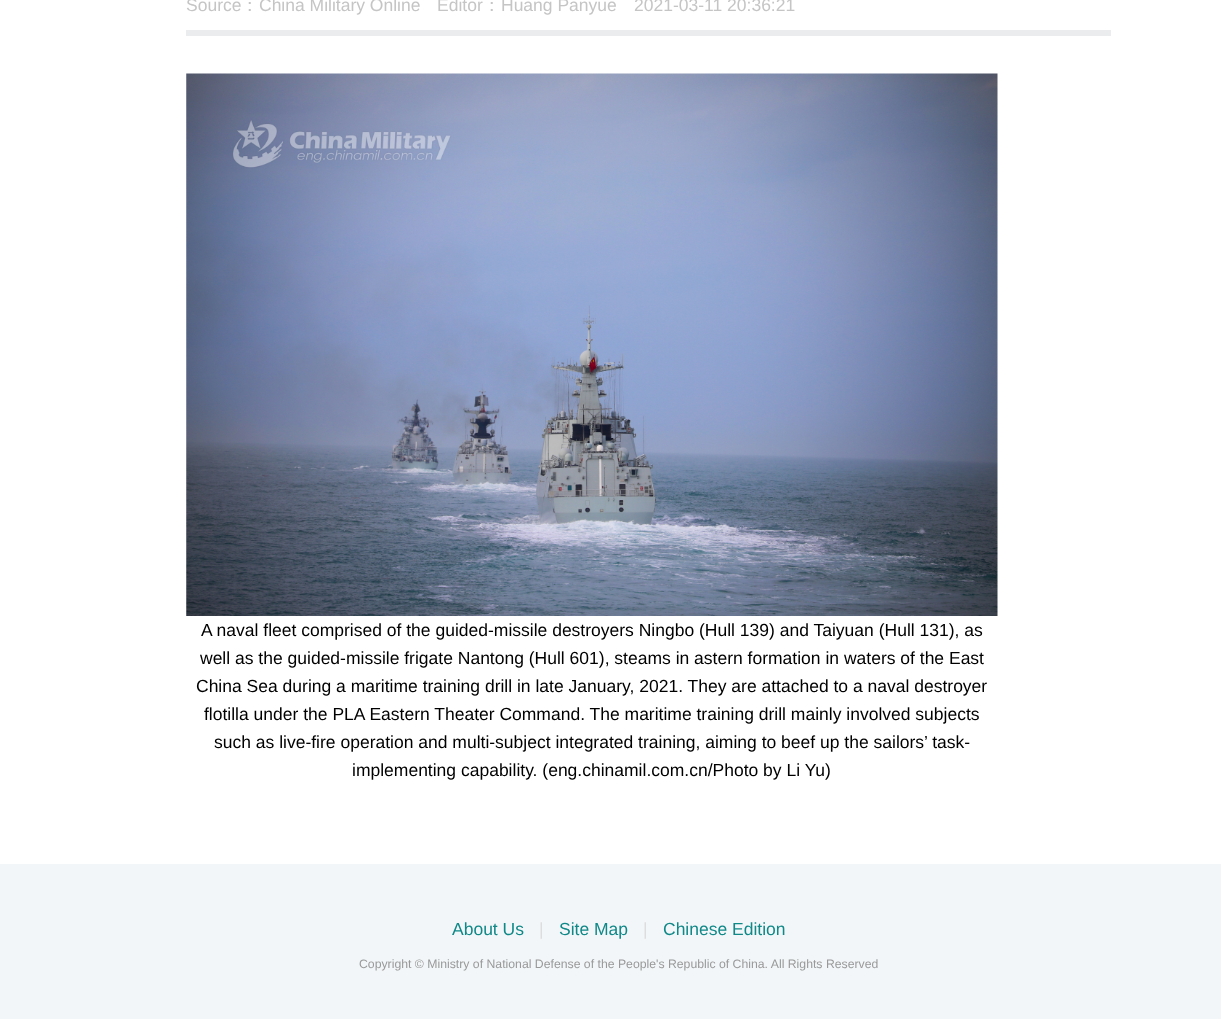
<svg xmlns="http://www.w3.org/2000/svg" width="1221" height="1019">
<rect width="100%" height="100%" fill="#fff"/>
<rect x="186" y="30" width="925" height="6" fill="#ebeced"/>
<text x="186" y="11" style="font-family:Liberation Sans;font-size:17.5px;fill:#c5c5c5">Source</text>
<text x="241" y="11" style="font-family:WenQuanYi Zen Hei;font-size:17.5px;font-weight:500;fill:#c5c5c5">：</text>
<text x="259" y="11" style="font-family:Liberation Sans;font-size:17.5px;fill:#c5c5c5">China Military Online</text>
<text x="437" y="11" style="font-family:Liberation Sans;font-size:17.5px;fill:#c5c5c5">Editor</text>
<text x="483" y="11" style="font-family:WenQuanYi Zen Hei;font-size:17.5px;font-weight:500;fill:#c5c5c5">：</text>
<text x="501" y="11" style="font-family:Liberation Sans;font-size:17.5px;fill:#c5c5c5">Huang Panyue</text>
<text x="634" y="11" style="font-family:Liberation Sans;font-size:17.5px;fill:#c5c5c5">2021-03-11 20:36:21</text>
<image x="186" y="73" width="812" height="543" href="media/1.png"/>
<text x="201" y="636" style="font-family:Liberation Sans;font-size:17.5px;fill:#000">A naval fleet comprised of the guided-missile destroyers Ningbo (Hull 139) and Taiyuan (Hull 131), as</text>
<text x="200" y="664" style="font-family:Liberation Sans;font-size:17.5px;fill:#000">well as the guided-missile frigate Nantong (Hull 601), steams in astern formation in waters of the East</text>
<text x="196" y="692" style="font-family:Liberation Sans;font-size:17.5px;fill:#000">China Sea during a maritime training drill in late January, 2021. They are attached to a naval destroyer</text>
<text x="204" y="720" style="font-family:Liberation Sans;font-size:17.5px;fill:#000">flotilla under the PLA Eastern Theater Command. The maritime training drill mainly involved subjects</text>
<text x="214" y="748" style="font-family:Liberation Sans;font-size:17.5px;fill:#000">such as live-fire operation and multi-subject integrated training, aiming to beef up the sailors’ task-</text>
<text x="352" y="776" style="font-family:Liberation Sans;font-size:17.5px;fill:#000">implementing capability. (eng.chinamil.com.cn/Photo by Li Yu)</text>
<rect y="864" width="1221" height="155" fill="#f2f6f8"/>
<text x="452" y="935" style="font-family:Liberation Sans;font-size:17.5px;fill:#188">About Us</text>
<text x="539" y="935" style="font-family:Liberation Sans;font-size:17.5px;fill:#ddd">|</text>
<text x="559" y="935" style="font-family:Liberation Sans;font-size:17.5px;fill:#188">Site Map</text>
<text x="643" y="935" style="font-family:Liberation Sans;font-size:17.5px;fill:#ddd">|</text>
<text x="663" y="935" style="font-family:Liberation Sans;font-size:17.5px;fill:#188">Chinese Edition</text>
<text x="359" y="968" style="font-family:Liberation Sans;font-size:12.25px;fill:#999">Copyright © Ministry of National Defense of the People's Republic of China. All Rights Reserved</text>
</svg>
